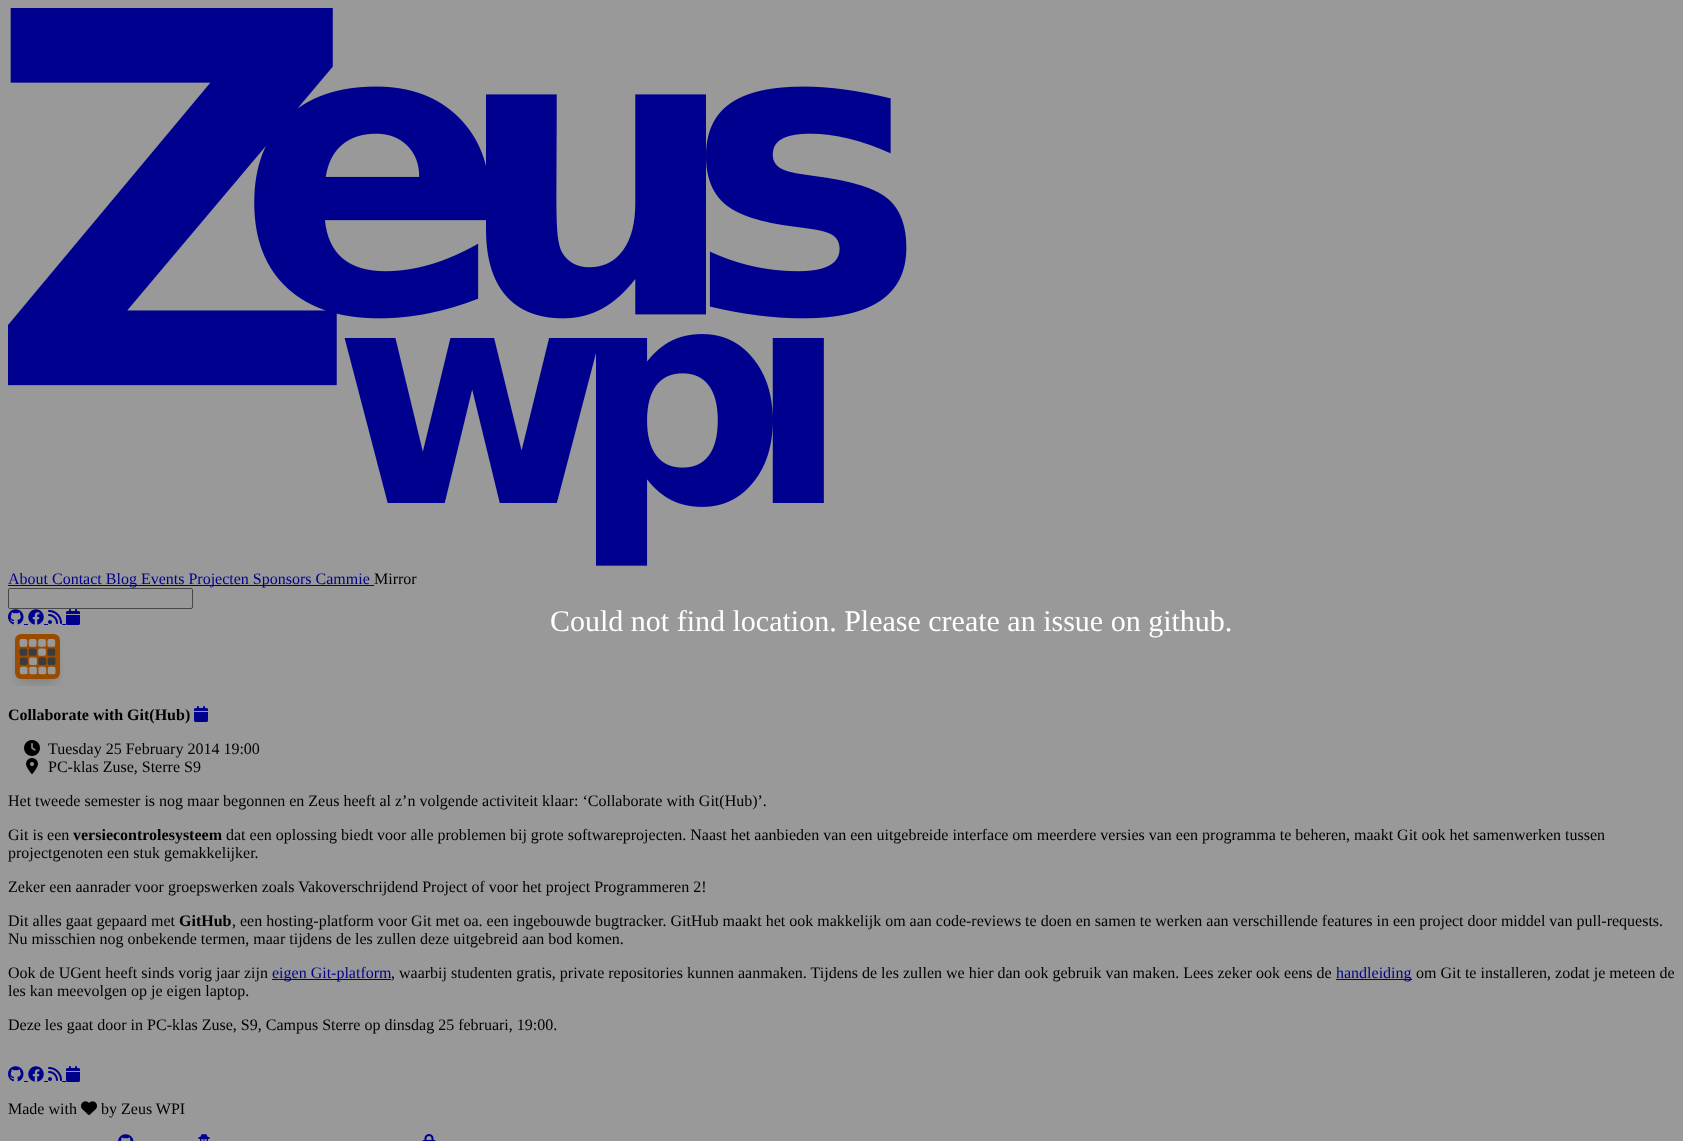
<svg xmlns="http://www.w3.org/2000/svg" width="1683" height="1141">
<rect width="100%" height="100%" fill="#999"/>
<image x="8" y="8" width="899" height="558" href="media/1.png"/>
<rect x="8" y="585" width="366" height="1" fill="#00008f"/>
<text x="8" y="584" style="font-family:Liberation Serif;font-size:16px;fill:#00008f">About Contact Blog Events Projecten Sponsors Cammie</text>
<text x="374" y="584" style="font-family:Liberation Serif;font-size:16px;fill:#000">Mirror</text>
<rect x="8.5" y="588.5" width="184" height="20" rx="1.5" fill="none" stroke="#474747"/>
<image x="8" y="609" width="16" height="16" href="media/2.png"/>
<rect x="24" y="624" width="4" height="1" fill="#00008f"/>
<image x="28" y="609" width="16" height="16" href="media/3.png"/>
<rect x="44" y="624" width="4" height="1" fill="#00008f"/>
<image x="48" y="610" width="14" height="14" href="media/4.png"/>
<rect x="62" y="624" width="4" height="1" fill="#00008f"/>
<image x="66" y="609" width="14" height="16" href="media/5.png"/>
<image x="12" y="634" width="51" height="52" href="media/6.png"/>
<text x="8" y="720" style="font-family:Liberation Serif;font-size:16px;font-weight:bold;fill:#000">Collaborate with Git(Hub)</text>
<image x="194" y="706" width="14" height="16" href="media/5.png"/>
<image x="24" y="740" width="16" height="16" href="media/7.png"/>
<text x="48" y="754" style="font-family:Liberation Serif;font-size:16px;fill:#000">Tuesday 25 February 2014 19:00</text>
<image x="26" y="758" width="12" height="16" href="media/8.png"/>
<text x="48" y="772" style="font-family:Liberation Serif;font-size:16px;fill:#000">PC-klas Zuse, Sterre S9</text>
<text x="550" y="631" style="font-family:Liberation Serif;font-size:30px;fill:#fff">Could not find location. Please create an issue on github.</text>
<text x="8" y="806" style="font-family:Liberation Serif;font-size:16px;fill:#000">Het tweede semester is nog maar begonnen en Zeus heeft al z’n volgende activiteit klaar: ‘Collaborate with Git(Hub)’.</text>
<text x="8" y="840" style="font-family:Liberation Serif;font-size:16px;fill:#000">Git is een</text>
<text x="73" y="840" style="font-family:Liberation Serif;font-size:16px;font-weight:bold;fill:#000">versiecontrolesysteem</text>
<text x="226" y="840" style="font-family:Liberation Serif;font-size:16px;fill:#000">dat een oplossing biedt voor alle problemen bij grote softwareprojecten. Naast het aanbieden van een uitgebreide interface om meerdere versies van een programma te beheren, maakt Git ook het samenwerken tussen</text>
<text x="8" y="858" style="font-family:Liberation Serif;font-size:16px;fill:#000">projectgenoten een stuk gemakkelijker.</text>
<text x="8" y="892" style="font-family:Liberation Serif;font-size:16px;fill:#000">Zeker een aanrader voor groepswerken zoals Vakoverschrijdend Project of voor het project Programmeren 2!</text>
<text x="8" y="926" style="font-family:Liberation Serif;font-size:16px;fill:#000">Dit alles gaat gepaard met</text>
<text x="179" y="926" style="font-family:Liberation Serif;font-size:16px;font-weight:bold;fill:#000">GitHub</text>
<text x="232" y="926" style="font-family:Liberation Serif;font-size:16px;fill:#000">, een hosting-platform voor Git met oa. een ingebouwde bugtracker. GitHub maakt het ook makkelijk om aan code-reviews te doen en samen te werken aan verschillende features in een project door middel van pull-requests.</text>
<text x="8" y="944" style="font-family:Liberation Serif;font-size:16px;fill:#000">Nu misschien nog onbekende termen, maar tijdens de les zullen deze uitgebreid aan bod komen.</text>
<text x="8" y="978" style="font-family:Liberation Serif;font-size:16px;fill:#000">Ook de UGent heeft sinds vorig jaar zijn</text>
<rect x="272" y="979" width="119" height="1" fill="#00008f"/>
<text x="272" y="978" style="font-family:Liberation Serif;font-size:16px;fill:#00008f">eigen Git-platform</text>
<text x="391" y="978" style="font-family:Liberation Serif;font-size:16px;fill:#000">, waarbij studenten gratis, private repositories kunnen aanmaken. Tijdens de les zullen we hier dan ook gebruik van maken. Lees zeker ook eens de</text>
<rect x="1336" y="979" width="76" height="1" fill="#00008f"/>
<text x="1336" y="978" style="font-family:Liberation Serif;font-size:16px;fill:#00008f">handleiding</text>
<text x="1416" y="978" style="font-family:Liberation Serif;font-size:16px;fill:#000">om Git te installeren, zodat je meteen de</text>
<text x="8" y="996" style="font-family:Liberation Serif;font-size:16px;fill:#000">les kan meevolgen op je eigen laptop.</text>
<text x="8" y="1030" style="font-family:Liberation Serif;font-size:16px;fill:#000">Deze les gaat door in PC-klas Zuse, S9, Campus Sterre op dinsdag 25 februari, 19:00.</text>
<image x="8" y="1066" width="16" height="16" href="media/2.png"/>
<rect x="24" y="1081" width="4" height="1" fill="#00008f"/>
<image x="28" y="1066" width="16" height="16" href="media/3.png"/>
<rect x="44" y="1081" width="4" height="1" fill="#00008f"/>
<image x="48" y="1067" width="14" height="14" href="media/4.png"/>
<rect x="62" y="1081" width="4" height="1" fill="#00008f"/>
<image x="66" y="1066" width="14" height="16" href="media/5.png"/>
<text x="8" y="1114" style="font-family:Liberation Serif;font-size:16px;fill:#000">Made with</text>
<image x="81" y="1101" width="16" height="14" href="media/9.png"/>
<text x="101" y="1114" style="font-family:Liberation Serif;font-size:16px;fill:#000">by Zeus WPI</text>
<image x="118" y="1134" width="16" height="7" href="media/10.png"/>
<image x="198" y="1134" width="12" height="7" href="media/11.png"/>
<image x="422" y="1134" width="14" height="7" href="media/12.png"/>
</svg>
